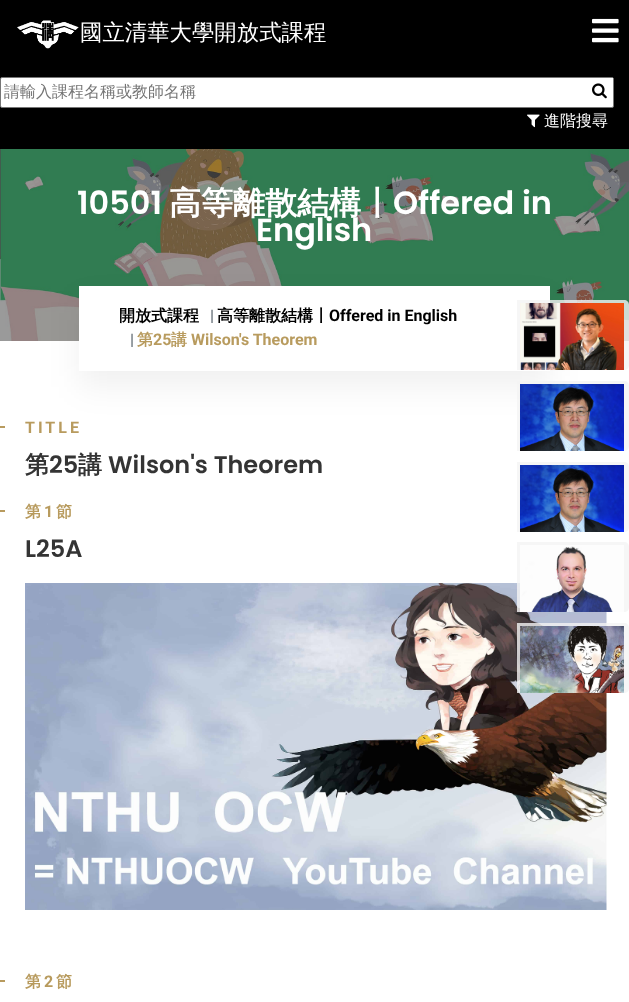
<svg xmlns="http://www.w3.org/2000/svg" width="629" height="1002">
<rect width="100%" height="100%" fill="#fff"/>
<rect width="629" height="149" fill="#000"/>
<image x="17" y="20" width="62" height="29" href="media/1.png"/>
<text x="80" y="40" style="font-family:WenQuanYi Zen Hei;font-size:22.4px;font-weight:500;fill:#fff">國立清華大學開放式課程</text>
<image x="592" y="18" width="27" height="25" href="media/2.png"/>
<rect x="0.5" y="77.5" width="613" height="30" rx="1.5" fill="#fff" stroke="#767676"/>
<text x="4" y="97" style="font-family:WenQuanYi Zen Hei;font-size:16px;font-weight:500;fill:#757575">請輸入課程名稱或教師名稱</text>
<rect x="612" y="78" width="1" height="1" fill="#fff"/>
<image x="592" y="83" width="15" height="16" href="media/3.png"/>
<image x="527" y="114" width="13" height="14" href="media/4.png"/>
<text x="544" y="126" style="font-family:WenQuanYi Zen Hei;font-size:16px;font-weight:500;fill:#fff">進階搜尋</text>
<image x="0" y="149" width="629" height="192" href="media/5.png"/>
<text x="77" y="214" style="font-family:Poppins;font-size:32px;font-weight:600;fill:#fff">10501</text>
<text x="169" y="214" style="font-family:WenQuanYi Zen Hei;font-size:32px;font-weight:bold;fill:#fff">高等離散結構〡</text>
<text x="393" y="214" style="font-family:Poppins;font-size:32px;font-weight:600;fill:#fff">Offered in</text>
<text x="256" y="241" style="font-family:Poppins;font-size:32px;font-weight:600;fill:#fff">English</text>
<rect x="79" y="302" width="471" height="85" fill="#0000000f" filter="blur(16px)"/>
<rect x="79" y="286" width="471" height="85" fill="#fff"/>
<text x="119" y="321" style="font-family:WenQuanYi Zen Hei;font-size:16px;font-weight:bold;fill:#000">開放式課程</text>
<text x="210" y="321" style="font-family:Roboto;font-size:16px;font-weight:bold;fill:#6c757d">|</text>
<text x="217" y="321" style="font-family:WenQuanYi Zen Hei;font-size:16px;font-weight:bold;fill:#000">高等離散結構〡</text>
<text x="329" y="321" style="font-family:Roboto;font-size:16px;font-weight:bold;fill:#000">Offered in English</text>
<text x="130" y="345" style="font-family:Roboto;font-size:16px;font-weight:bold;fill:#6c757d">|</text>
<text x="137" y="345" style="font-family:WenQuanYi Zen Hei;font-size:16px;font-weight:bold;fill:#b89b5e">第</text>
<text x="153" y="345" style="font-family:Roboto;font-size:16px;font-weight:bold;fill:#b89b5e">25</text>
<text x="171" y="345" style="font-family:WenQuanYi Zen Hei;font-size:16px;font-weight:bold;fill:#b89b5e">講</text>
<text x="191" y="345" style="font-family:Roboto;font-size:16px;font-weight:bold;fill:#b89b5e">Wilson's Theorem</text>
<rect y="426" width="5" height="2" fill="#b89b5e"/>
<text x="25" y="433" style="font-family:Roboto;font-size:16px;font-weight:bold;letter-spacing:3px;fill:#b89b5e">TITLE</text>
<text x="25" y="473" style="font-family:WenQuanYi Zen Hei;font-size:24px;font-weight:bold;fill:#343434">第</text>
<text x="49" y="473" style="font-family:Poppins;font-size:24px;font-weight:600;fill:#343434">25</text>
<text x="78" y="473" style="font-family:WenQuanYi Zen Hei;font-size:24px;font-weight:bold;fill:#343434">講</text>
<text x="108" y="473" style="font-family:Poppins;font-size:24px;font-weight:600;fill:#343434">Wilson's Theorem</text>
<rect y="510" width="5" height="2" fill="#b89b5e"/>
<text x="25" y="517" style="font-family:WenQuanYi Zen Hei;font-size:16px;font-weight:bold;letter-spacing:3px;fill:#b89b5e">第</text>
<text x="44" y="517" style="font-family:Roboto;font-size:16px;font-weight:bold;letter-spacing:3px;fill:#b89b5e">1</text>
<text x="56" y="517" style="font-family:WenQuanYi Zen Hei;font-size:16px;font-weight:bold;letter-spacing:3px;fill:#b89b5e">節</text>
<text x="25" y="557" style="font-family:Poppins;font-size:24px;font-weight:600;fill:#343434">L25A</text>
<image x="25" y="583" width="582" height="327" href="media/6.png"/>
<rect y="980" width="5" height="2" fill="#b89b5e"/>
<text x="25" y="987" style="font-family:WenQuanYi Zen Hei;font-size:16px;font-weight:bold;letter-spacing:3px;fill:#b89b5e">第</text>
<text x="44" y="987" style="font-family:Roboto;font-size:16px;font-weight:bold;letter-spacing:3px;fill:#b89b5e">2</text>
<text x="56" y="987" style="font-family:WenQuanYi Zen Hei;font-size:16px;font-weight:bold;letter-spacing:3px;fill:#b89b5e">節</text>
<path d="M517 300h107c3 0 5 2 5 5v60c0 3-2 5-5 5h-107z" fill="#f4f4f4cc"/>
<image x="520" y="303" width="104" height="67" href="media/7.png"/>
<path d="M517 381h107c3 0 5 2 5 5v60c0 3-2 5-5 5h-107z" fill="#f4f4f4cc"/>
<image x="520" y="384" width="104" height="67" href="media/8.png"/>
<path d="M517 462h107c3 0 5 2 5 5v60c0 3-2 5-5 5h-107z" fill="#f6f6f6"/>
<image x="520" y="465" width="104" height="67" href="media/8.png"/>
<path d="M517 542h107c3 0 5 2 5 5v60c0 3-2 5-5 5h-107z" fill="#f4f4f4cc"/>
<image x="520" y="545" width="104" height="67" href="media/9.png"/>
<path d="M517 623h107c3 0 5 2 5 5v60c0 3-2 5-5 5h-107z" fill="#f4f4f4cc"/>
<image x="520" y="626" width="104" height="67" href="media/10.png"/>
</svg>
